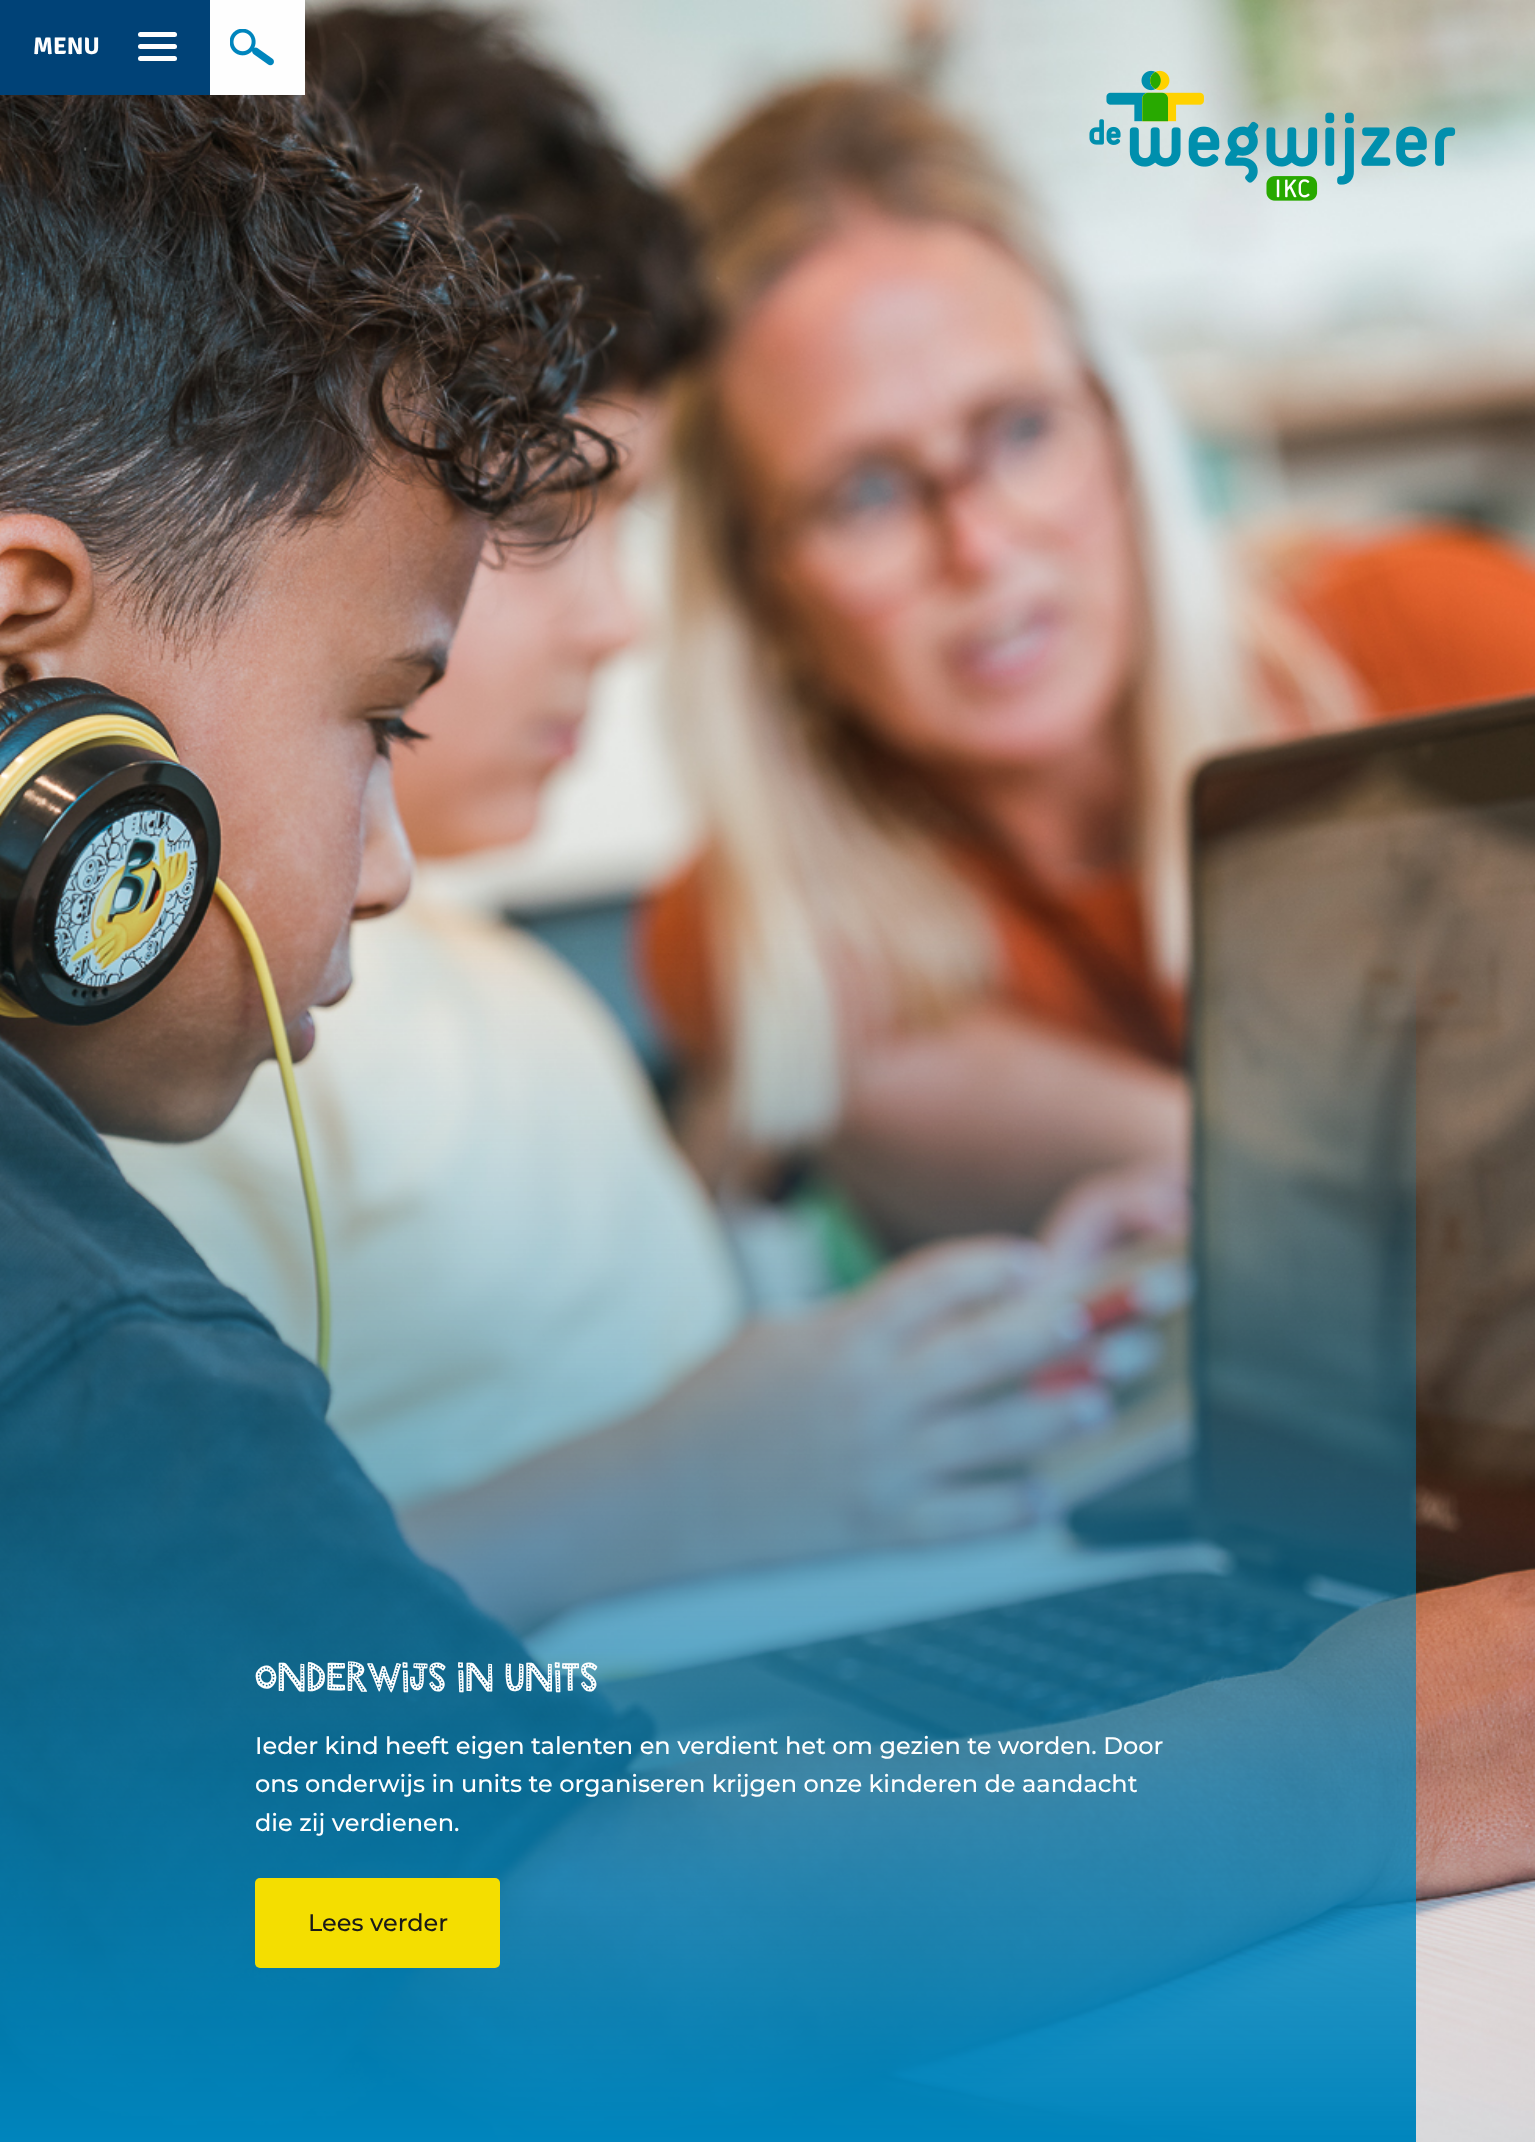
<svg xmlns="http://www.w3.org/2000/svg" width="1535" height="2142">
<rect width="100%" height="100%" fill="#fff"/>
<image x="0" y="0" width="1535" height="2142" href="media/3.png"/>
<rect width="210" height="95" fill="#004277"/>
<text x="33" y="54" style="font-family:Signika;font-size:24px;font-weight:300;fill:#fefefe">MENU</text>
<rect x="138" y="44" width="39" height="5" rx="2.5" fill="#fefefe"/>
<rect x="138" y="32" width="39" height="5" rx="2.5" fill="#fefefe"/>
<rect x="138" y="56" width="39" height="5" rx="2.5" fill="#fefefe"/>
<rect x="210" width="95" height="95" fill="#fefefe"/>
<image x="230" y="29" width="44" height="37" href="media/1.png"/>
<image x="1089" y="70" width="367" height="131" href="media/2.png"/>
<text x="255" y="1691" style="font-family:'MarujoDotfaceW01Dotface';font-size:42px;font-weight:500;fill:#fefefe">Onderwijs in units</text>
<text x="255" y="1754" style="font-family:Montserrat;font-size:24px;font-weight:500;fill:#fefefe">Ieder kind heeft eigen talenten en verdient het om gezien te worden. Door</text>
<text x="255" y="1792" style="font-family:Montserrat;font-size:24px;font-weight:500;fill:#fefefe">ons onderwijs in units te organiseren krijgen onze kinderen de aandacht</text>
<text x="255" y="1831" style="font-family:Montserrat;font-size:24px;font-weight:500;fill:#fefefe">die zij verdienen.</text>
<rect x="255" y="1878" width="245" height="90" rx="5" fill="#f4de00"/>
<text x="308" y="1931" style="font-family:Montserrat;font-size:24px;font-weight:500;fill:#1a1a18">Lees verder</text>
</svg>
